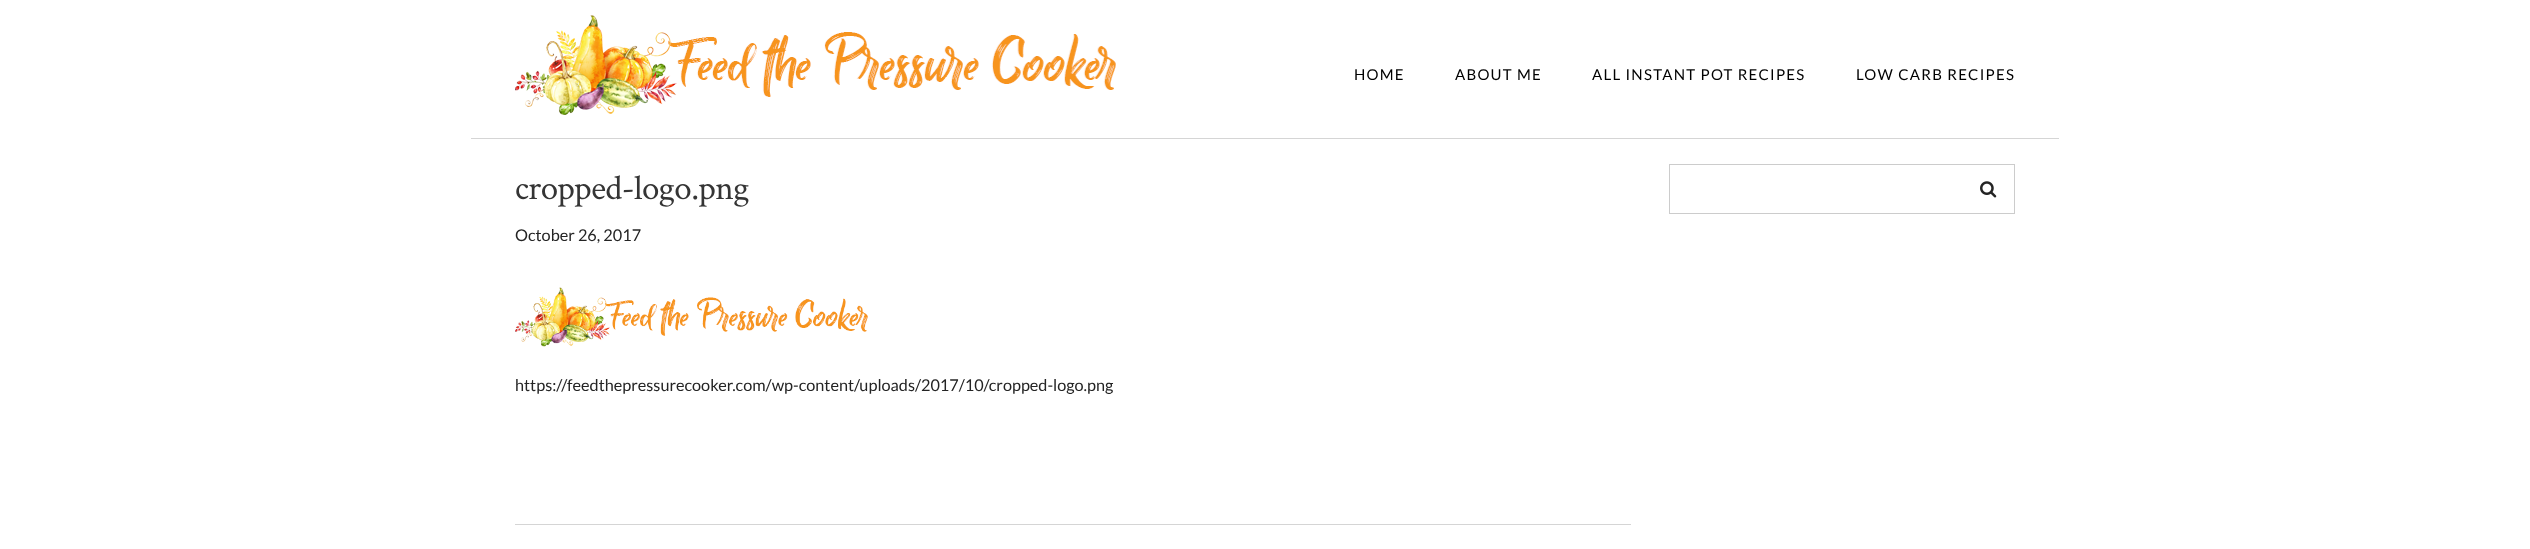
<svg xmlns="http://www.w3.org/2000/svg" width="2530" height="549">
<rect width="100%" height="100%" fill="#fff"/>
<rect x="471" y="138" width="1588" height="1" fill="#d5d5d5"/>
<image x="515" y="15" width="601" height="100" href="media/1.png"/>
<text x="1354" y="80" style="font-family:Lato;font-size:15px;letter-spacing:1.25px;fill:#000">HOME</text>
<text x="1455" y="80" style="font-family:Lato;font-size:15px;letter-spacing:1.25px;fill:#000">ABOUT ME</text>
<text x="1592" y="80" style="font-family:Lato;font-size:15px;letter-spacing:1.25px;fill:#000">ALL INSTANT POT RECIPES</text>
<text x="1856" y="80" style="font-family:Lato;font-size:15px;letter-spacing:1.25px;fill:#000">LOW CARB RECIPES</text>
<text x="515" y="199" style="font-family:Crimson Text;font-size:35px;letter-spacing:-0.6px;fill:#353535">cropped-logo.png</text>
<text x="515" y="241" style="font-family:Lato;font-size:16.25px;fill:#242424">October 26, 2017</text>
<image x="515" y="287" width="353" height="60" href="media/2.png"/>
<text x="515" y="391" style="font-family:Lato;font-size:16.25px;fill:#242424">https://feedthepressurecooker.com/wp-content/uploads/2017/10/cropped-logo.png</text>
<rect x="515" y="524" width="1116" height="1" fill="#d5d5d5"/>
<image x="1980" y="181" width="17" height="17" href="media/3.png"/>
<rect x="1669.5" y="164.5" width="345" height="49" fill="none" stroke="#ccc"/>
</svg>
